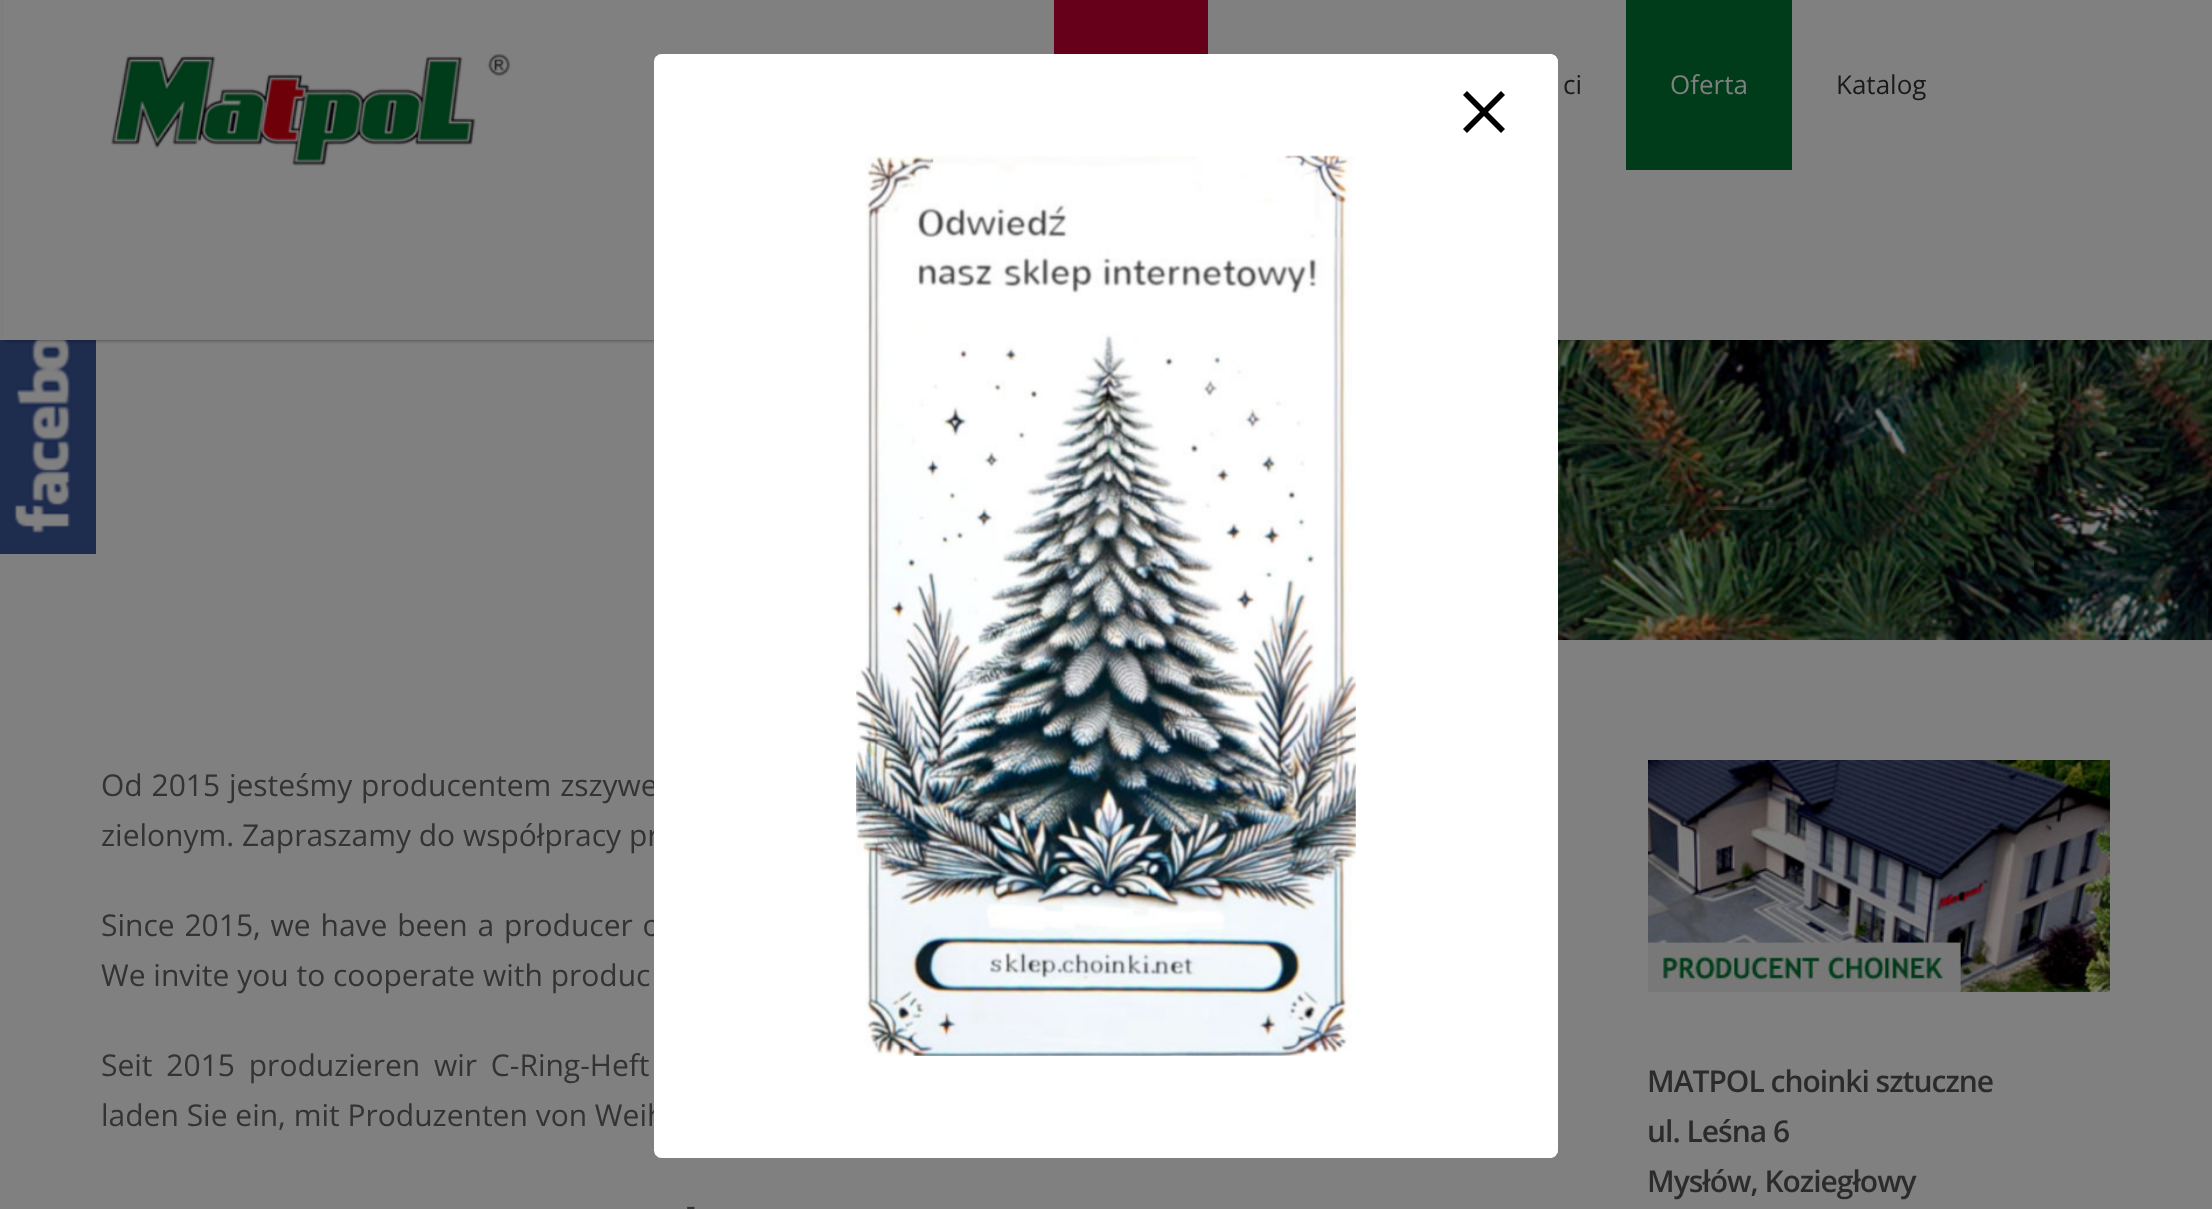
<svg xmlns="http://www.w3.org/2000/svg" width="2212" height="1209">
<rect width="100%" height="100%" fill="#808080"/>
<image x="0" y="340" width="2212" height="300" href="media/4.png"/>
<image x="0" y="340" width="96" height="214" href="media/2.png"/>
<rect x="6" width="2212" height="340" fill="#00000080" filter="blur(2px)"/>
<rect x="3" width="2209" height="340" fill="#808080"/>
<text x="101" y="796" word-spacing="1" style="font-family:Open Sans;font-size:30px;fill:#333">Od 2015 jesteśmy producentem zszywe</text>
<text x="101" y="846" style="font-family:Open Sans;font-size:30px;fill:#333">zielonym. Zapraszamy do współpracy pr</text>
<text x="101" y="936" word-spacing="2" style="font-family:Open Sans;font-size:30px;fill:#333">Since 2015, we have been a producer o</text>
<text x="101" y="1126" style="font-family:Open Sans;font-size:30px;fill:#333">laden Sie ein, mit Produzenten von Weih</text>
<rect x="654" y="54" width="904" height="1104" rx="8" fill="#fff"/>
<path d="M662 55h888c4 0 7 3 7 7v1088c0 4-3 7-7 7h-888c-4 0-7-3-7-7v-1088c0-4 3-7 7-7z" fill="none" stroke="#fff" stroke-width="2" stroke-dasharray="2 2"/>
<path d="M1505 95l-4-4l-17 17l-17-17l-4 4l17 17l-17 17l4 4l17-17l17 17l4-4l-17-17z" fill="#000"/>
<image x="856" y="155" width="500" height="901" href="media/1.png"/>
<image x="111" y="54" width="400" height="112" href="media/3.png"/>
<rect x="1054" width="154" height="54" fill="#66001a"/>
<text x="1563" y="94" style="font-family:Open Sans;font-size:26px;fill:#1a1a1a">ci</text>
<rect x="1626" width="166" height="170" fill="#003c19"/>
<text x="1670" y="94" style="font-family:Open Sans;font-size:26px;fill:#808080">Oferta</text>
<text x="1836" y="94" style="font-family:Open Sans;font-size:26px;fill:#1a1a1a">Katalog</text>
<text x="101" y="986" style="font-family:Open Sans;font-size:30px;fill:#333">We invite you to cooperate with produc</text>
<text x="101" y="1076" word-spacing="6" style="font-family:Open Sans;font-size:30px;fill:#333">Seit 2015 produzieren wir C-Ring-Heft</text>
<text x="686" y="1216" word-spacing="1" style="font-family:Open Sans;font-size:30px;fill:#333">-</text>
<image x="1648" y="760" width="462" height="232" href="media/5.png"/>
<text x="1647" y="1092" style="font-family:Open Sans;font-size:30px;font-weight:600;letter-spacing:-1px;fill:#2b2b2b">MATPOL choinki sztuczne</text>
<text x="1647" y="1142" style="font-family:Open Sans;font-size:30px;font-weight:600;letter-spacing:-1px;fill:#2b2b2b">ul. Leśna 6</text>
<text x="1647" y="1192" style="font-family:Open Sans;font-size:30px;font-weight:600;letter-spacing:-1px;fill:#2b2b2b">Mysłów, Koziegłowy</text>
</svg>
